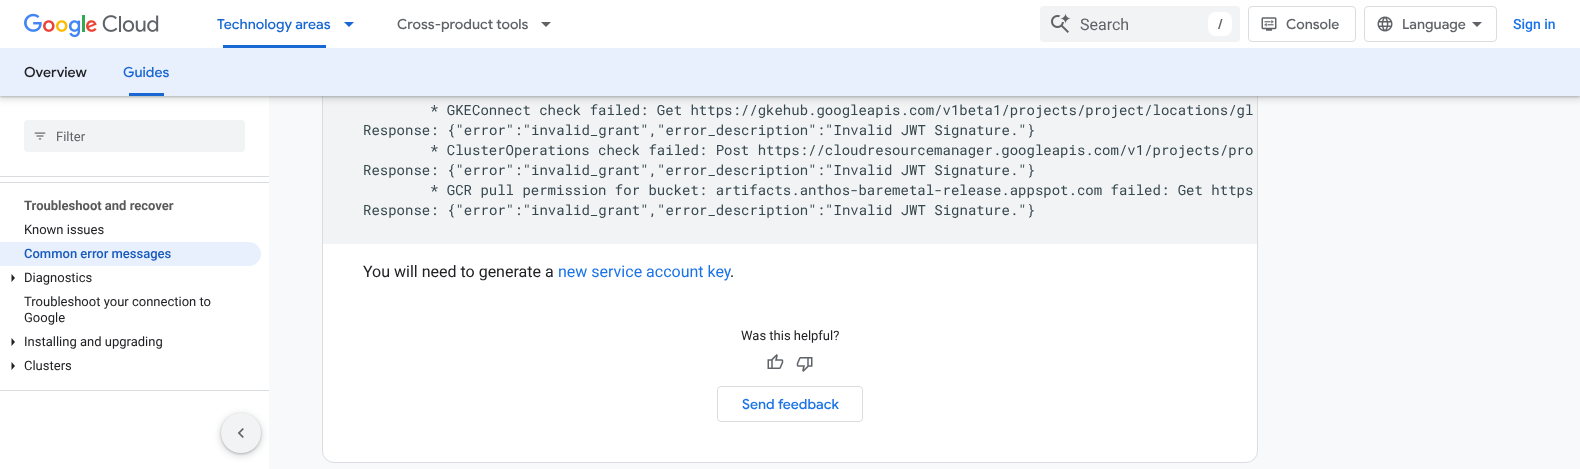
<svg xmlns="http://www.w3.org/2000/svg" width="1580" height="469">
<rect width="100%" height="100%" fill="#f8f9fa"/>
<rect y="1" width="269" height="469" fill="#3c4043" filter="blur(0.5px)"/>
<rect y="177" width="269" height="292" fill="#fff"/>
<rect y="96" width="269" height="80" fill="#fff"/>
<rect x="322.5" y="-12.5" width="935" height="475" rx="11.5" fill="#fff" stroke="#dadce0"/>
<rect x="323" y="96" width="934" height="148" fill="#f1f3f4"/>
<rect x="-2" y="-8" width="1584" height="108" fill="#3c404326" filter="blur(3px)"/>
<rect y="-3" width="1580" height="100" fill="#3c40434d" filter="blur(1px)"/>
<rect width="1580" height="48" fill="#fff"/>
<image x="24" y="13" width="135" height="25" href="media/1.png"/>
<text x="217" y="29" style="font-family:Google Sans;font-size:14px;font-weight:500;fill:#1967d2">Technology areas</text>
<rect x="223" y="45" width="103" height="3" fill="#1967d2"/>
<path d="M344 22h10l-5 5z" fill="#1967d2"/>
<text x="397" y="29" style="font-family:Google Sans;font-size:14px;font-weight:500;fill:#5f6368">Cross-product tools</text>
<path d="M541 22h10l-5 5z" fill="#5f6368"/>
<rect x="1040" y="6" width="200" height="36" rx="4" fill="#f1f3f4"/>
<image x="1051" y="13" width="20" height="20" href="media/2.png"/>
<text x="1080" y="30" style="font-family:Roboto;font-size:16px;fill:#5f6368">Search</text>
<rect x="1208" y="12" width="24" height="24" rx="8" fill="#fff"/>
<text x="1218" y="29" style="font-family:Google Sans;font-size:14px;font-weight:500;fill:#5f6368">/</text>
<rect x="1248.5" y="6.5" width="107" height="35" rx="3.5" fill="none" stroke="#dadce0"/>
<image x="1261" y="17" width="16" height="14" href="media/3.png"/>
<text x="1286" y="29" style="font-family:Google Sans;font-size:14px;font-weight:500;fill:#5f6368">Console</text>
<rect x="1364.5" y="6.5" width="132" height="35" rx="3.5" fill="none" stroke="#dadce0"/>
<image x="1377" y="16" width="16" height="16" href="media/4.png"/>
<text x="1402" y="29" style="font-family:Google Sans;font-size:14px;font-weight:500;fill:#5f6368">Language</text>
<path d="M1477 27l-5-5h10z" fill="#5f6368"/>
<text x="1513" y="29" style="font-family:Roboto;font-size:14px;font-weight:500;fill:#1a73e8">Sign in</text>
<rect y="48" width="1580" height="48" fill="#e8f0fe"/>
<text x="24" y="77" style="font-family:Google Sans;font-size:14px;font-weight:500;fill:#202124">Overview</text>
<text x="123" y="77" style="font-family:Google Sans;font-size:14px;font-weight:500;fill:#1967d2">Guides</text>
<rect x="129" y="93" width="35" height="3" fill="#1967d2"/>
<rect y="176" width="269" height="1" fill="#dadce0"/>
<rect x="24" y="120" width="221" height="32" rx="4" fill="#f1f3f4"/>
<image x="34" y="132" width="12" height="8" href="media/5.png"/>
<text x="56" y="141" style="font-family:Roboto;font-size:13px;fill:#5f6368">Filter</text>
<rect y="182" width="269" height="1" fill="#dadce0"/>
<text x="24" y="210" style="font-family:Roboto;font-size:13px;font-weight:bold;fill:#595959">Troubleshoot and recover</text>
<text x="24" y="234" style="font-family:Roboto;font-size:13px;fill:#202124">Known issues</text>
<path d="M0 242h249c6.5 0 12 5.5 12 12c0 6.5-5.5 12-12 12h-249z" fill="#e8f0fe"/>
<text x="24" y="258" style="font-family:Roboto;font-size:13px;font-weight:500;fill:#185abc">Common error messages</text>
<path d="M11.5 282v-8l3.5 4z" fill="#202124"/>
<text x="24" y="282" style="font-family:Roboto;font-size:13px;fill:#202124">Diagnostics</text>
<text x="24" y="306" style="font-family:Roboto;font-size:13px;fill:#202124">Troubleshoot your connection to</text>
<text x="24" y="322" style="font-family:Roboto;font-size:13px;fill:#202124">Google</text>
<path d="M11.5 346v-8l3.5 4z" fill="#202124"/>
<text x="24" y="346" style="font-family:Roboto;font-size:13px;fill:#202124">Installing and upgrading</text>
<path d="M11.5 370v-8l3.5 4z" fill="#202124"/>
<text x="24" y="370" style="font-family:Roboto;font-size:13px;fill:#202124">Clusters</text>
<rect y="390" width="269" height="1" fill="#dadce0"/>
<text x="430" y="115" style="font-family:Roboto Mono;font-size:14px;fill:#37474f">* GKEConnect check failed: Get https://gkehub.googleapis.com/v1beta1/projects/project/locations/gl</text>
<text x="363" y="135" style="font-family:Roboto Mono;font-size:14px;fill:#37474f">Response: {"error":"invalid_grant","error_description":"Invalid JWT Signature."}</text>
<text x="430" y="155" style="font-family:Roboto Mono;font-size:14px;fill:#37474f">* ClusterOperations check failed: Post https://cloudresourcemanager.googleapis.com/v1/projects/pro</text>
<text x="363" y="175" style="font-family:Roboto Mono;font-size:14px;fill:#37474f">Response: {"error":"invalid_grant","error_description":"Invalid JWT Signature."}</text>
<text x="430" y="195" style="font-family:Roboto Mono;font-size:14px;fill:#37474f">* GCR pull permission for bucket: artifacts.anthos-baremetal-release.appspot.com failed: Get https</text>
<text x="363" y="215" style="font-family:Roboto Mono;font-size:14px;fill:#37474f">Response: {"error":"invalid_grant","error_description":"Invalid JWT Signature."}</text>
<text x="363" y="277" style="font-family:Roboto;font-size:16px;fill:#202124">You will need to generate a</text>
<text x="558" y="277" style="font-family:Roboto;font-size:16px;fill:#1a73e8">new service account key</text>
<text x="730" y="277" style="font-family:Roboto;font-size:16px;fill:#202124">.</text>
<text x="741" y="340" style="font-family:Roboto;font-size:13px;fill:#202124">Was this helpful?</text>
<image x="767" y="354" width="17" height="15" href="media/6.png"/>
<image x="796" y="357" width="17" height="15" href="media/7.png"/>
<rect x="717.5" y="386.5" width="145" height="35" rx="3.5" fill="none" stroke="#dadce0"/>
<text x="742" y="409" style="font-family:Google Sans;font-size:14px;font-weight:500;fill:#1a73e8">Send feedback</text>
<rect x="219" y="413" width="44" height="44" rx="22" fill="#3c404326" filter="blur(3px)"/>
<rect x="221" y="414" width="40" height="40" rx="20" fill="#3c40434d" filter="blur(1px)"/>
<circle cx="241" cy="433" r="20" fill="#f1f3f4"/>
<image x="237" y="428" width="7" height="10" href="media/8.png"/>
</svg>
